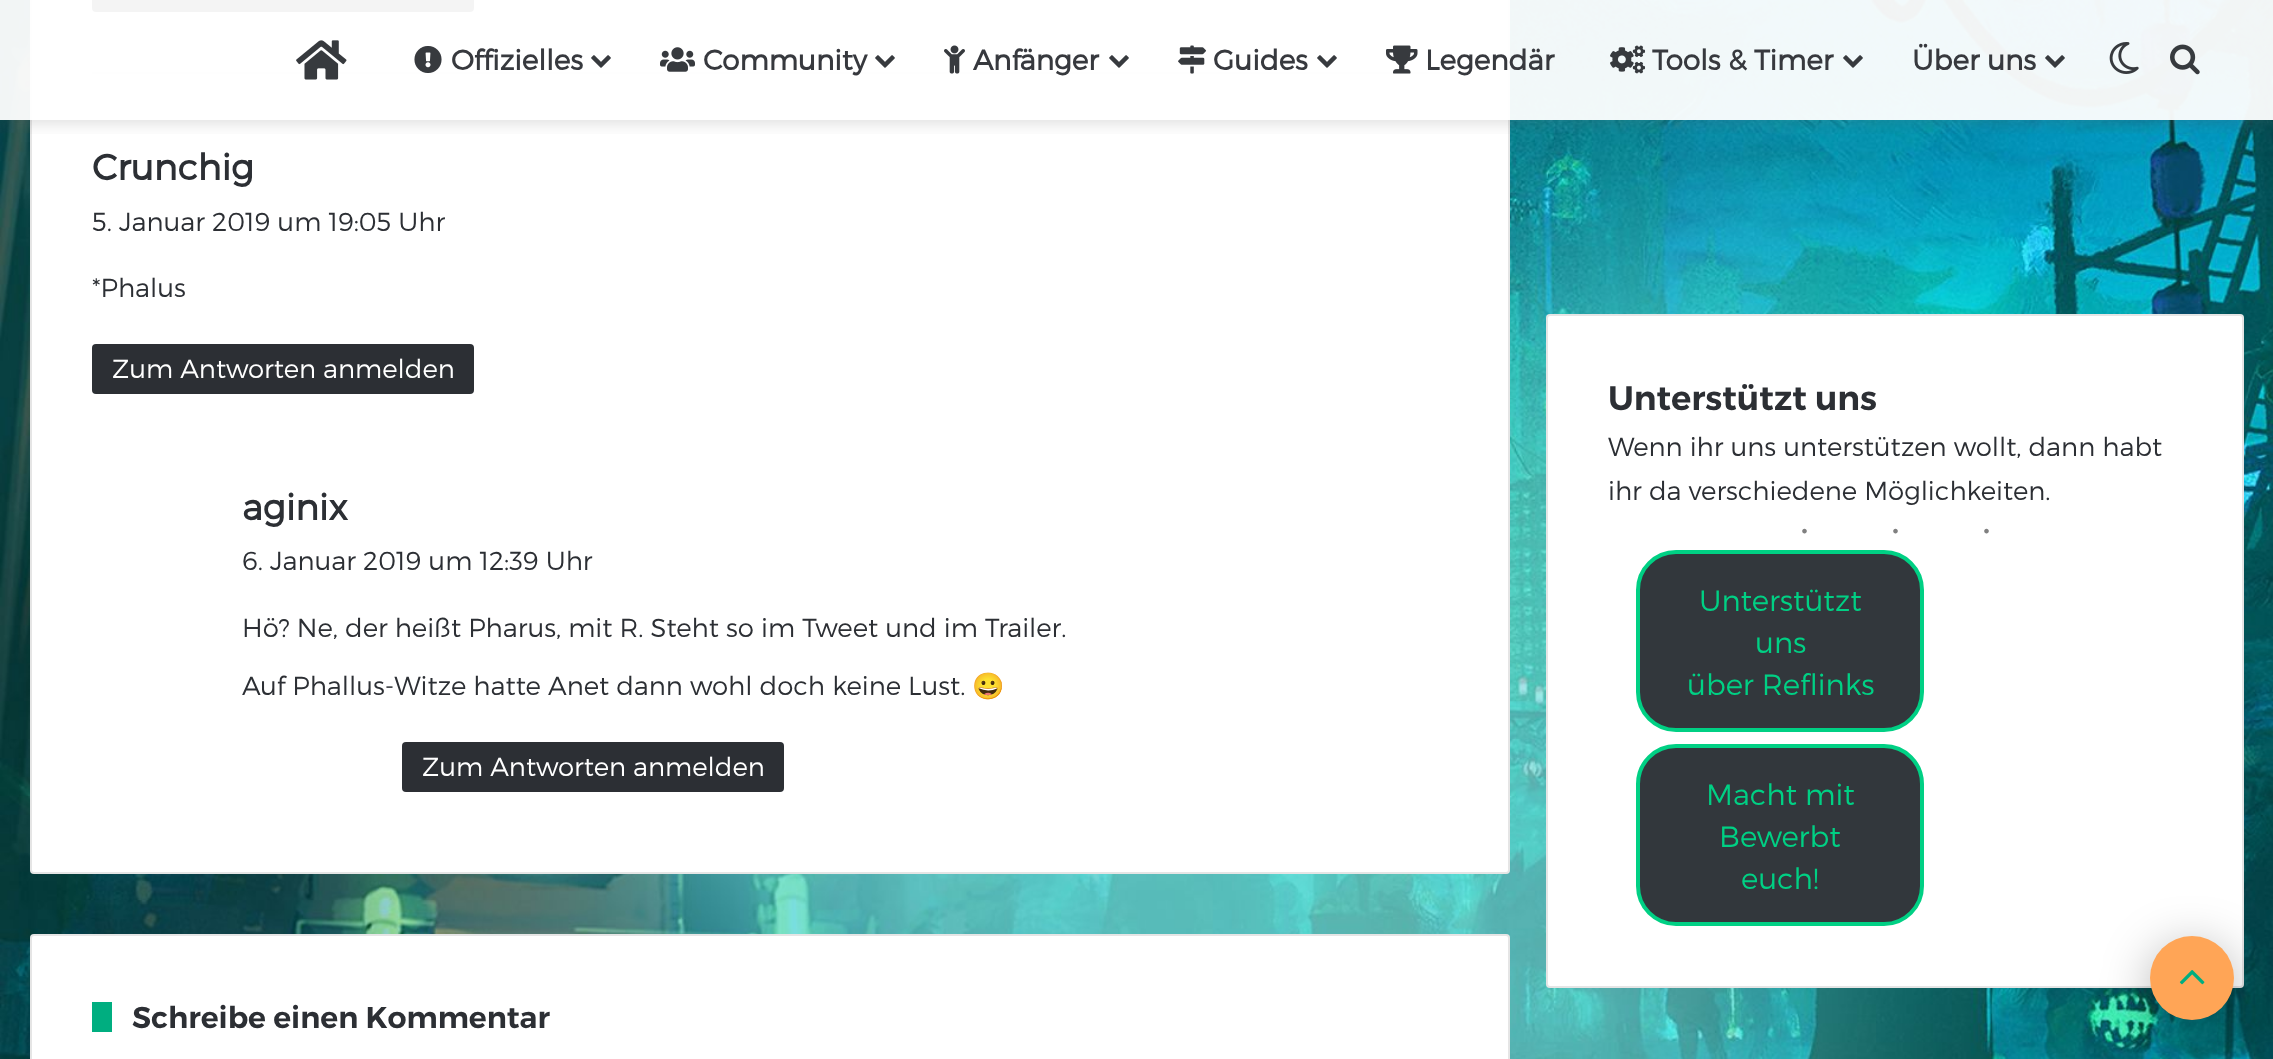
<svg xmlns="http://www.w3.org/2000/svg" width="2273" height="1059">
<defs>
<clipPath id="clip1"><rect x="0" y="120" width="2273" height="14"/></clipPath>
</defs>
<rect width="100%" height="100%" fill="#fff"/>
<image x="0" y="0" width="2273" height="1059" href="media/1.png"/>
<rect x="30" y="-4" width="1480" height="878" rx="4" fill="#fff"/>
<rect x="31" y="-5" width="1478" height="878" rx="3" fill="none" stroke="#0000001a" stroke-width="2"/>
<rect x="92" y="72" width="1356" height="2" fill="#e6e6e6"/>
<rect x="92" y="-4" width="382" height="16" rx="4" fill="#2c2f34"/>
<g clip-path="url(#clip1)">
<rect y="4" width="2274" height="120" fill="#63636333" filter="blur(8px)"/>
</g>
<rect width="2273" height="120" fill="#fffffff2"/>
<image x="296" y="40" width="51" height="40" href="media/2.png"/>
<image x="414" y="46" width="28" height="27" href="media/3.png"/>
<text x="451" y="70" style="font-family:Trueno;font-size:28px;font-weight:bold;fill:#37393e">Offizielles</text>
<image x="591" y="55" width="20" height="13" href="media/4.png"/>
<image x="660" y="47" width="35" height="25" href="media/5.png"/>
<text x="703" y="70" style="font-family:Trueno;font-size:28px;font-weight:bold;fill:#37393e">Community</text>
<image x="875" y="55" width="20" height="13" href="media/4.png"/>
<image x="944" y="45" width="21" height="29" href="media/6.png"/>
<text x="973" y="70" style="font-family:Trueno;font-size:28px;font-weight:bold;fill:#37393e">Anfänger</text>
<image x="1109" y="55" width="20" height="13" href="media/4.png"/>
<image x="1178" y="45" width="29" height="29" href="media/7.png"/>
<text x="1213" y="70" style="font-family:Trueno;font-size:28px;font-weight:bold;fill:#37393e">Guides</text>
<image x="1317" y="55" width="20" height="13" href="media/4.png"/>
<image x="1386" y="45" width="32" height="29" href="media/8.png"/>
<text x="1425" y="70" style="font-family:Trueno;font-size:28px;font-weight:bold;fill:#37393e">Legendär</text>
<image x="1610" y="45" width="36" height="29" href="media/9.png"/>
<text x="1652" y="70" style="font-family:Trueno;font-size:28px;font-weight:bold;fill:#37393e">Tools &amp; Timer</text>
<image x="1843" y="55" width="20" height="13" href="media/10.png"/>
<text x="1912" y="70" style="font-family:Trueno;font-size:28px;font-weight:bold;fill:#37393e">Über uns</text>
<image x="2045" y="55" width="20" height="13" href="media/11.png"/>
<image x="2109" y="42" width="30" height="32" href="media/12.png"/>
<image x="2170" y="44" width="30" height="31" href="media/13.png"/>
<text x="92" y="180" style="font-family:Trueno;font-size:36px;font-weight:bold;fill:#2c2f34">Crunchig</text>
<text x="92" y="231" style="font-family:Trueno;font-size:26px;font-weight:300;fill:#2c2f34">5. Januar 2019 um 19:05 Uhr</text>
<text x="92" y="297" style="font-family:Trueno;font-size:26px;font-weight:300;fill:#2c2f34">*Phalus</text>
<rect x="92" y="344" width="382" height="50" rx="4" fill="#2c2f34"/>
<text x="112" y="378" style="font-family:Trueno;font-size:26px;font-weight:300;fill:#fff">Zum Antworten anmelden</text>
<text x="242" y="520" style="font-family:Trueno;font-size:36px;font-weight:bold;fill:#2c2f34">aginix</text>
<text x="242" y="570" style="font-family:Trueno;font-size:26px;font-weight:300;fill:#2c2f34">6. Januar 2019 um 12:39 Uhr</text>
<text x="242" y="637" style="font-family:Trueno;font-size:26px;font-weight:300;fill:#2c2f34">Hö? Ne, der heißt Pharus, mit R. Steht so im Tweet und im Trailer.</text>
<text x="242" y="695" style="font-family:Trueno;font-size:26px;font-weight:300;fill:#2c2f34">Auf Phallus-Witze hatte Anet dann wohl doch keine Lust.</text>
<text x="972" y="695" style="font-family:Noto Color Emoji;font-size:26px;fill:#2c2f34">😀</text>
<rect x="402" y="742" width="382" height="50" rx="4" fill="#2c2f34"/>
<text x="422" y="776" style="font-family:Trueno;font-size:26px;font-weight:300;fill:#fff">Zum Antworten anmelden</text>
<rect x="30" y="934" width="1480" height="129" rx="4" fill="#fff"/>
<rect x="31" y="935" width="1478" height="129" rx="3" fill="none" stroke="#0000001a" stroke-width="2"/>
<rect x="92" y="1002" width="20" height="30" fill="#00ae80"/>
<text x="132" y="1028" style="font-family:Trueno;font-size:30px;font-weight:600;fill:#2c2f34">Schreibe einen Kommentar</text>
<rect x="1546" y="314" width="698" height="674" rx="4" fill="#fff"/>
<rect x="1547" y="315" width="696" height="672" rx="3" fill="none" stroke="#0000001a" stroke-width="2"/>
<text x="1608" y="410" style="font-family:Trueno;font-size:34px;font-weight:600;fill:#2c2f34">Unterstützt uns</text>
<text x="1608" y="456" style="font-family:Trueno;font-size:26px;font-weight:300;fill:#2c2f34">Wenn ihr uns unterstützen wollt, dann habt</text>
<text x="1608" y="500" style="font-family:Trueno;font-size:26px;font-weight:300;fill:#2c2f34">ihr da verschiedene Möglichkeiten.</text>
<text x="1798" y="544" style="font-family:Liberation Serif;font-size:39px;letter-spacing:78px;fill:#808080">···</text>
<rect x="1638" y="552" width="284" height="178" rx="38" fill="#32373c" stroke="#00d084" stroke-width="4"/>
<text x="1699" y="611" style="font-family:Trueno;font-size:29.25px;font-weight:300;fill:#00d084">Unterstützt</text>
<text x="1755" y="653" style="font-family:Trueno;font-size:29.25px;font-weight:300;fill:#00d084">uns</text>
<text x="1687" y="695" style="font-family:Trueno;font-size:29.25px;font-weight:300;fill:#00d084">über Reflinks</text>
<rect x="1638" y="746" width="284" height="178" rx="38" fill="#32373c" stroke="#00d084" stroke-width="4"/>
<text x="1706" y="805" style="font-family:Trueno;font-size:29.25px;font-weight:300;fill:#00d084">Macht mit</text>
<text x="1719" y="847" style="font-family:Trueno;font-size:29.25px;font-weight:300;fill:#00d084">Bewerbt</text>
<text x="1741" y="889" style="font-family:Trueno;font-size:29.25px;font-weight:300;fill:#00d084">euch!</text>
<rect x="2150" y="946" width="84" height="84" rx="42" fill="#0000004d" filter="blur(25px)"/>
<circle cx="2192" cy="978" r="42" fill="#ffa556"/>
<image x="2179" y="970" width="26" height="15" href="media/14.png"/>
</svg>
